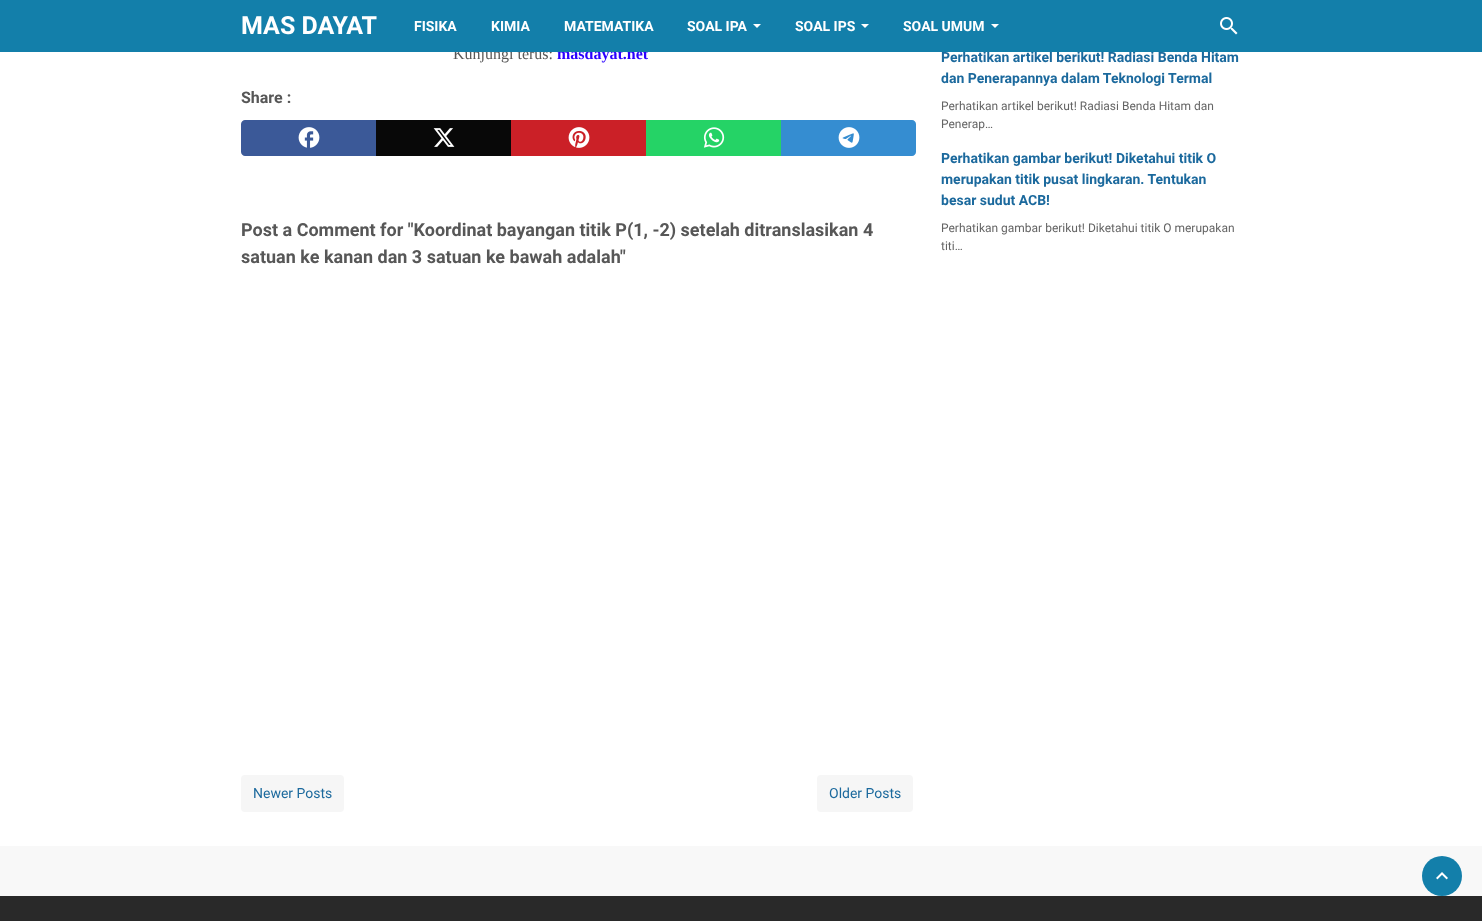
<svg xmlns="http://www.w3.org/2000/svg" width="1482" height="921">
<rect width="100%" height="100%" fill="#fff"/>
<text x="453" y="59" style="font-family:Liberation Serif;font-size:16px;fill:#575757">Kunjungi terus:</text>
<text x="557" y="59" style="font-family:Liberation Serif;font-size:16px;font-weight:bold;fill:#2b00fe">masdayat.net</text>
<text x="941" y="62" style="font-family:Roboto;font-size:14px;font-weight:bold;fill:#1b699d">Perhatikan artikel berikut! Radiasi Benda Hitam</text>
<rect width="1482" height="52" fill="#137faa"/>
<text x="241" y="34" style="font-family:Roboto;font-size:25px;font-weight:bold;fill:#fff">MAS DAYAT</text>
<text x="414" y="31" style="font-family:Roboto;font-size:14px;font-weight:bold;fill:#fff">FISIKA</text>
<text x="491" y="31" style="font-family:Roboto;font-size:14px;font-weight:bold;fill:#fff">KIMIA</text>
<text x="564" y="31" style="font-family:Roboto;font-size:14px;font-weight:bold;fill:#fff">MATEMATIKA</text>
<text x="687" y="31" style="font-family:Roboto;font-size:14px;font-weight:bold;fill:#fff">SOAL IPA</text>
<path d="M753 24h8l-4 4z" fill="#fff"/>
<text x="795" y="31" style="font-family:Roboto;font-size:14px;font-weight:bold;fill:#fff">SOAL IPS</text>
<path d="M861 24h8l-4 4z" fill="#fff"/>
<text x="903" y="31" style="font-family:Roboto;font-size:14px;font-weight:bold;fill:#fff">SOAL UMUM</text>
<path d="M991 24h8l-4 4z" fill="#fff"/>
<image x="1220" y="17" width="18" height="18" href="media/1.png"/>
<text x="241" y="103" style="font-family:Roboto;font-size:16px;font-weight:bold;fill:#575757">Share :</text>
<path d="M245 120h131v36h-131c-2 0-4-2-4-4v-28c0-2 2-4 4-4z" fill="#3b5998"/>
<image x="298" y="127" width="22" height="21" href="media/2.png"/>
<rect x="376" y="120" width="135" height="36" fill="#080808"/>
<image x="433" y="128" width="22" height="19" href="media/3.png"/>
<rect x="511" y="120" width="135" height="36" fill="#cb2027"/>
<image x="568" y="127" width="22" height="21" href="media/4.png"/>
<rect x="646" y="120" width="135" height="36" fill="#25d366"/>
<image x="703" y="127" width="22" height="21" href="media/5.png"/>
<path d="M781 120h131c2 0 4 2 4 4v28c0 2-2 4-4 4h-131z" fill="#358dd1"/>
<image x="838" y="127" width="22" height="21" href="media/6.png"/>
<text x="241" y="236" style="font-family:Roboto;font-size:18px;font-weight:bold;fill:#575757">Post a Comment for "Koordinat bayangan titik P(1, -2) setelah ditranslasikan 4</text>
<text x="241" y="263" style="font-family:Roboto;font-size:18px;font-weight:bold;fill:#575757">satuan ke kanan dan 3 satuan ke bawah adalah"</text>
<rect x="241" y="775" width="103" height="37" rx="4" fill="#f6f6f6"/>
<text x="253" y="798" style="font-family:Roboto;font-size:14px;fill:#1b699d">Newer Posts</text>
<rect x="817" y="775" width="96" height="37" rx="4" fill="#f6f6f6"/>
<text x="829" y="798" style="font-family:Roboto;font-size:14px;fill:#1b699d">Older Posts</text>
<text x="941" y="83" style="font-family:Roboto;font-size:14px;font-weight:bold;fill:#1b699d">dan Penerapannya dalam Teknologi Termal</text>
<text x="941" y="110" style="font-family:Roboto;font-size:12px;fill:#646464">Perhatikan artikel berikut! Radiasi Benda Hitam dan</text>
<text x="941" y="128" style="font-family:Roboto;font-size:12px;fill:#646464">Penerap…</text>
<text x="941" y="163" style="font-family:Roboto;font-size:14px;font-weight:bold;fill:#1b699d">Perhatikan gambar berikut! Diketahui titik O</text>
<text x="941" y="184" style="font-family:Roboto;font-size:14px;font-weight:bold;fill:#1b699d">merupakan titik pusat lingkaran. Tentukan</text>
<text x="941" y="205" style="font-family:Roboto;font-size:14px;font-weight:bold;fill:#1b699d">besar sudut ACB!</text>
<text x="941" y="232" style="font-family:Roboto;font-size:12px;fill:#646464">Perhatikan gambar berikut! Diketahui titik O merupakan</text>
<text x="941" y="250" style="font-family:Roboto;font-size:12px;fill:#646464">titi…</text>
<rect y="846" width="1482" height="50" fill="#f8f8f8"/>
<circle cx="1442" cy="876" r="20" fill="#137faa"/>
<image x="1436" y="872" width="12" height="8" href="media/7.png"/>
<rect y="896" width="1482" height="25" fill="#292929"/>
</svg>
